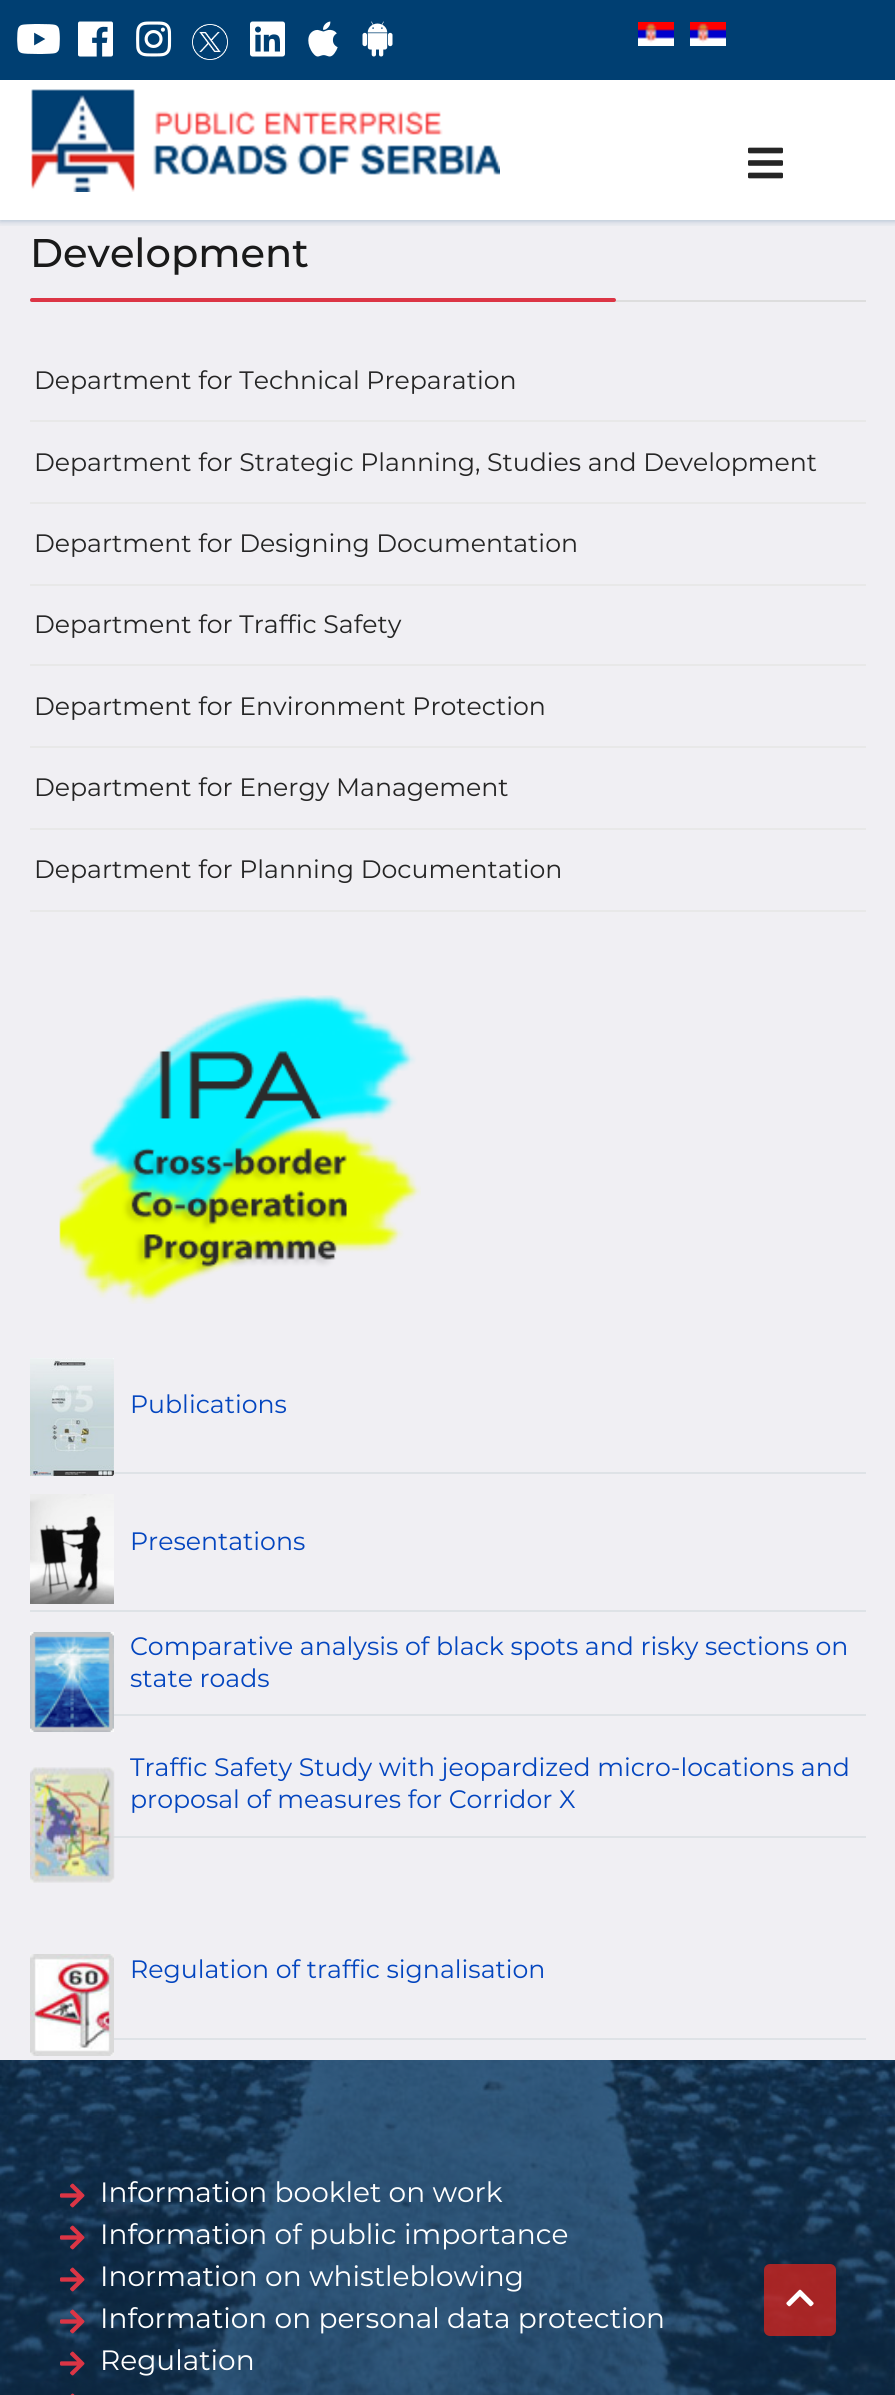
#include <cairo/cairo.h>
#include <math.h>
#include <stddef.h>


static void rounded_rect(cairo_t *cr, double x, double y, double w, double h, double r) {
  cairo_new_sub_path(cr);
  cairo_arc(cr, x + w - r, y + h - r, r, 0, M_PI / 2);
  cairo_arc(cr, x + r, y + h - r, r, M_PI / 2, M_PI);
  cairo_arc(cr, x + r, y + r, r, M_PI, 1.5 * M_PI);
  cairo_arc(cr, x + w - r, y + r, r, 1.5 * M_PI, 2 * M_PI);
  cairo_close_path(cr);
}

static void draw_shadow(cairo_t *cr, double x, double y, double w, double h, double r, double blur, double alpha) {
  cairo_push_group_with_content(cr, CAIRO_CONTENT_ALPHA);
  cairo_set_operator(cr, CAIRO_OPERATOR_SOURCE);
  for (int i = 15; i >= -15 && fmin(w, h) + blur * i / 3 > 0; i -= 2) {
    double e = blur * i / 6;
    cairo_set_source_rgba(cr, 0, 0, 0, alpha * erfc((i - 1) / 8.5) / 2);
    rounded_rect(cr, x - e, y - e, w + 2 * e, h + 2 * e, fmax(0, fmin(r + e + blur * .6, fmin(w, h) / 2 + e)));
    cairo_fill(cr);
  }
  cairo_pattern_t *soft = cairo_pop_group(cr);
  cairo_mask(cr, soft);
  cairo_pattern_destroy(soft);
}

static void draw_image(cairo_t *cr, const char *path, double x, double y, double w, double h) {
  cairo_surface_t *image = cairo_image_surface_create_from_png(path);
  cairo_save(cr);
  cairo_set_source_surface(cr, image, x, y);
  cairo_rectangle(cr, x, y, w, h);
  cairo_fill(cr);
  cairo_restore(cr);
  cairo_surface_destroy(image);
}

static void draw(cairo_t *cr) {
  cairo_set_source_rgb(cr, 1, 1, 1);
  cairo_paint(cr);
  cairo_set_source_rgb(cr, 240 / 255.0, 239 / 255.0, 243 / 255.0);
  cairo_rectangle(cr, 0, 80, 895, 1980);
  cairo_fill(cr);
  cairo_save(cr);
  cairo_rectangle(cr, 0, 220, 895, 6);
  cairo_clip(cr);
  cairo_set_source_rgb(cr, 0, 63 / 255.0, 114 / 255.0);
  draw_shadow(cr, 0, 80, 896, 140, 0, 4, 0.35);
  cairo_restore(cr);
  cairo_set_source_rgb(cr, 0, 63 / 255.0, 114 / 255.0);
  cairo_rectangle(cr, 0, 0, 895, 80);
  cairo_fill(cr);
  draw_image(cr, "images/1.png", 17, 24, 43, 30);
  draw_image(cr, "images/2.png", 78, 21, 35, 36);
  draw_image(cr, "images/3.png", 136, 21, 36, 36);
  draw_image(cr, "images/4.png", 192, 24, 36, 36);
  draw_image(cr, "images/5.png", 250, 21, 35, 36);
  draw_image(cr, "images/6.png", 308, 21, 30, 36);
  draw_image(cr, "images/7.png", 362, 21, 31, 36);
  draw_image(cr, "images/8.png", 638, 22, 36, 24);
  draw_image(cr, "images/8.png", 690, 22, 36, 24);
  cairo_set_source_rgba(cr, 1, 1, 1, 0.97);
  cairo_rectangle(cr, 0, 80, 895, 140);
  cairo_fill(cr);
  draw_image(cr, "images/9.png", 31, 89, 469, 103);
  draw_image(cr, "images/10.png", 748, 147, 35, 32);
  cairo_set_source_rgb(cr, 221 / 255.0, 221 / 255.0, 221 / 255.0);
  cairo_rectangle(cr, 30, 300, 836, 2);
  cairo_fill(cr);
  cairo_set_source_rgb(cr, 220 / 255.0, 53 / 255.0, 69 / 255.0);
  rounded_rect(cr, 30, 298, 586, 4, 2);
  cairo_fill(cr);
  cairo_set_source_rgb(cr, 232 / 255.0, 232 / 255.0, 232 / 255.0);
  cairo_rectangle(cr, 30, 420, 836, 2);
  cairo_fill(cr);
  cairo_rectangle(cr, 30, 502, 836, 2);
  cairo_fill(cr);
  cairo_rectangle(cr, 30, 584, 836, 2);
  cairo_fill(cr);
  cairo_rectangle(cr, 30, 664, 836, 2);
  cairo_fill(cr);
  cairo_rectangle(cr, 30, 746, 836, 2);
  cairo_fill(cr);
  cairo_rectangle(cr, 30, 828, 836, 2);
  cairo_fill(cr);
  cairo_rectangle(cr, 30, 910, 836, 2);
  cairo_fill(cr);
  draw_image(cr, "images/11.png", 59, 995, 362, 309);
  cairo_set_source_rgb(cr, 222 / 255.0, 226 / 255.0, 230 / 255.0);
  cairo_rectangle(cr, 114, 1472, 752, 2);
  cairo_fill(cr);
  draw_image(cr, "images/12.png", 30, 1358, 84, 118);
  cairo_rectangle(cr, 30, 1610, 836, 2);
  cairo_fill(cr);
  draw_image(cr, "images/13.png", 30, 1494, 84, 110);
  cairo_rectangle(cr, 114, 1714, 752, 2);
  cairo_fill(cr);
  draw_image(cr, "images/14.png", 30, 1632, 84, 100);
  cairo_rectangle(cr, 113, 1836, 753, 2);
  cairo_fill(cr);
  draw_image(cr, "images/15.png", 30, 1767, 85, 116);
  cairo_rectangle(cr, 114, 2038, 752, 2);
  cairo_fill(cr);
  draw_image(cr, "images/16.png", 30, 1954, 84, 102);
  draw_image(cr, "images/17.png", 0, 2060, 895, 335);
  cairo_set_source_rgba(cr, 8 / 255.0, 44 / 255.0, 78 / 255.0, 0.65);
  cairo_rectangle(cr, 0, 2060, 895, 335);
  cairo_fill(cr);
  draw_image(cr, "images/18.png", 60, 2183, 25, 25);
  draw_image(cr, "images/19.png", 60, 2225, 25, 25);
  draw_image(cr, "images/20.png", 60, 2267, 25, 25);
  draw_image(cr, "images/21.png", 60, 2309, 25, 25);
  draw_image(cr, "images/22.png", 60, 2351, 25, 25);
  draw_image(cr, "images/23.png", 70, 2393, 5, 2);
  cairo_set_source_rgba(cr, 218 / 255.0, 37 / 255.0, 28 / 255.0, 0.75);
  rounded_rect(cr, 764, 2264, 72, 72, 6);
  cairo_fill(cr);
  draw_image(cr, "images/24.png", 786, 2289, 28, 18);
  cairo_select_font_face(cr, "Montserrat Medium", CAIRO_FONT_SLANT_NORMAL, CAIRO_FONT_WEIGHT_NORMAL);
  cairo_set_font_size(cr, 40);
  cairo_set_source_rgb(cr, 26 / 255.0, 26 / 255.0, 26 / 255.0);
  cairo_move_to(cr, 30, 267);
  cairo_show_text(cr, "Development");
  cairo_select_font_face(cr, "Montserrat", CAIRO_FONT_SLANT_NORMAL, CAIRO_FONT_WEIGHT_NORMAL);
  cairo_set_font_size(cr, 25.2);
  cairo_set_source_rgb(cr, 37 / 255.0, 37 / 255.0, 37 / 255.0);
  cairo_move_to(cr, 34, 389);
  cairo_show_text(cr, "Department for Technical Preparation");
  cairo_move_to(cr, 34, 471);
  cairo_show_text(cr, "Department for Strategic Planning, Studies and Development");
  cairo_move_to(cr, 34, 552);
  cairo_show_text(cr, "Department for Designing Documentation");
  cairo_move_to(cr, 34, 633);
  cairo_show_text(cr, "Department for Traffic Safety");
  cairo_move_to(cr, 34, 715);
  cairo_show_text(cr, "Department for Environment Protection");
  cairo_move_to(cr, 34, 796);
  cairo_show_text(cr, "Department for Energy Management");
  cairo_move_to(cr, 34, 878);
  cairo_show_text(cr, "Department for Planning Documentation");
  cairo_set_source_rgb(cr, 3 / 255.0, 69 / 255.0, 191 / 255.0);
  cairo_move_to(cr, 130, 1413);
  cairo_show_text(cr, "Publications");
  cairo_move_to(cr, 130, 1550);
  cairo_show_text(cr, "Presentations");
  cairo_move_to(cr, 130, 1655);
  cairo_show_text(cr, "Comparative analysis of black spots and risky sections on");
  cairo_move_to(cr, 130, 1687);
  cairo_show_text(cr, "state roads");
  cairo_move_to(cr, 130, 1776);
  cairo_show_text(cr, "Traffic Safety Study with jeopardized micro-locations and");
  cairo_move_to(cr, 130, 1808);
  cairo_show_text(cr, "proposal of measures for Corridor X");
  cairo_move_to(cr, 130, 1978);
  cairo_show_text(cr, "Regulation of traffic signalisation");
  cairo_set_font_size(cr, 28);
  cairo_set_source_rgb(cr, 1, 1, 1);
  cairo_move_to(cr, 100, 2202);
  cairo_show_text(cr, "Information booklet on work");
  cairo_move_to(cr, 100, 2244);
  cairo_show_text(cr, "Information of public importance");
  cairo_move_to(cr, 100, 2286);
  cairo_show_text(cr, "Inormation on whistleblowing");
  cairo_move_to(cr, 100, 2328);
  cairo_show_text(cr, "Information on personal data protection");
  cairo_move_to(cr, 100, 2370);
  cairo_show_text(cr, "Regulation");
}

int main(void) {
  cairo_surface_t *surface = cairo_image_surface_create(CAIRO_FORMAT_RGB24, 895, 2395);
  cairo_t *cr = cairo_create(surface);
  cairo_font_options_t *options = cairo_font_options_create();
  cairo_font_options_set_hint_metrics(options, CAIRO_HINT_METRICS_OFF);
  cairo_font_options_set_hint_style(options, CAIRO_HINT_STYLE_NONE);
  cairo_set_font_options(cr, options);
  cairo_set_miter_limit(cr, 4);
  draw(cr);
  cairo_surface_write_to_png(surface, "out.png");
  cairo_font_options_destroy(options);
  cairo_destroy(cr);
  cairo_surface_destroy(surface);
  return 0;
}
